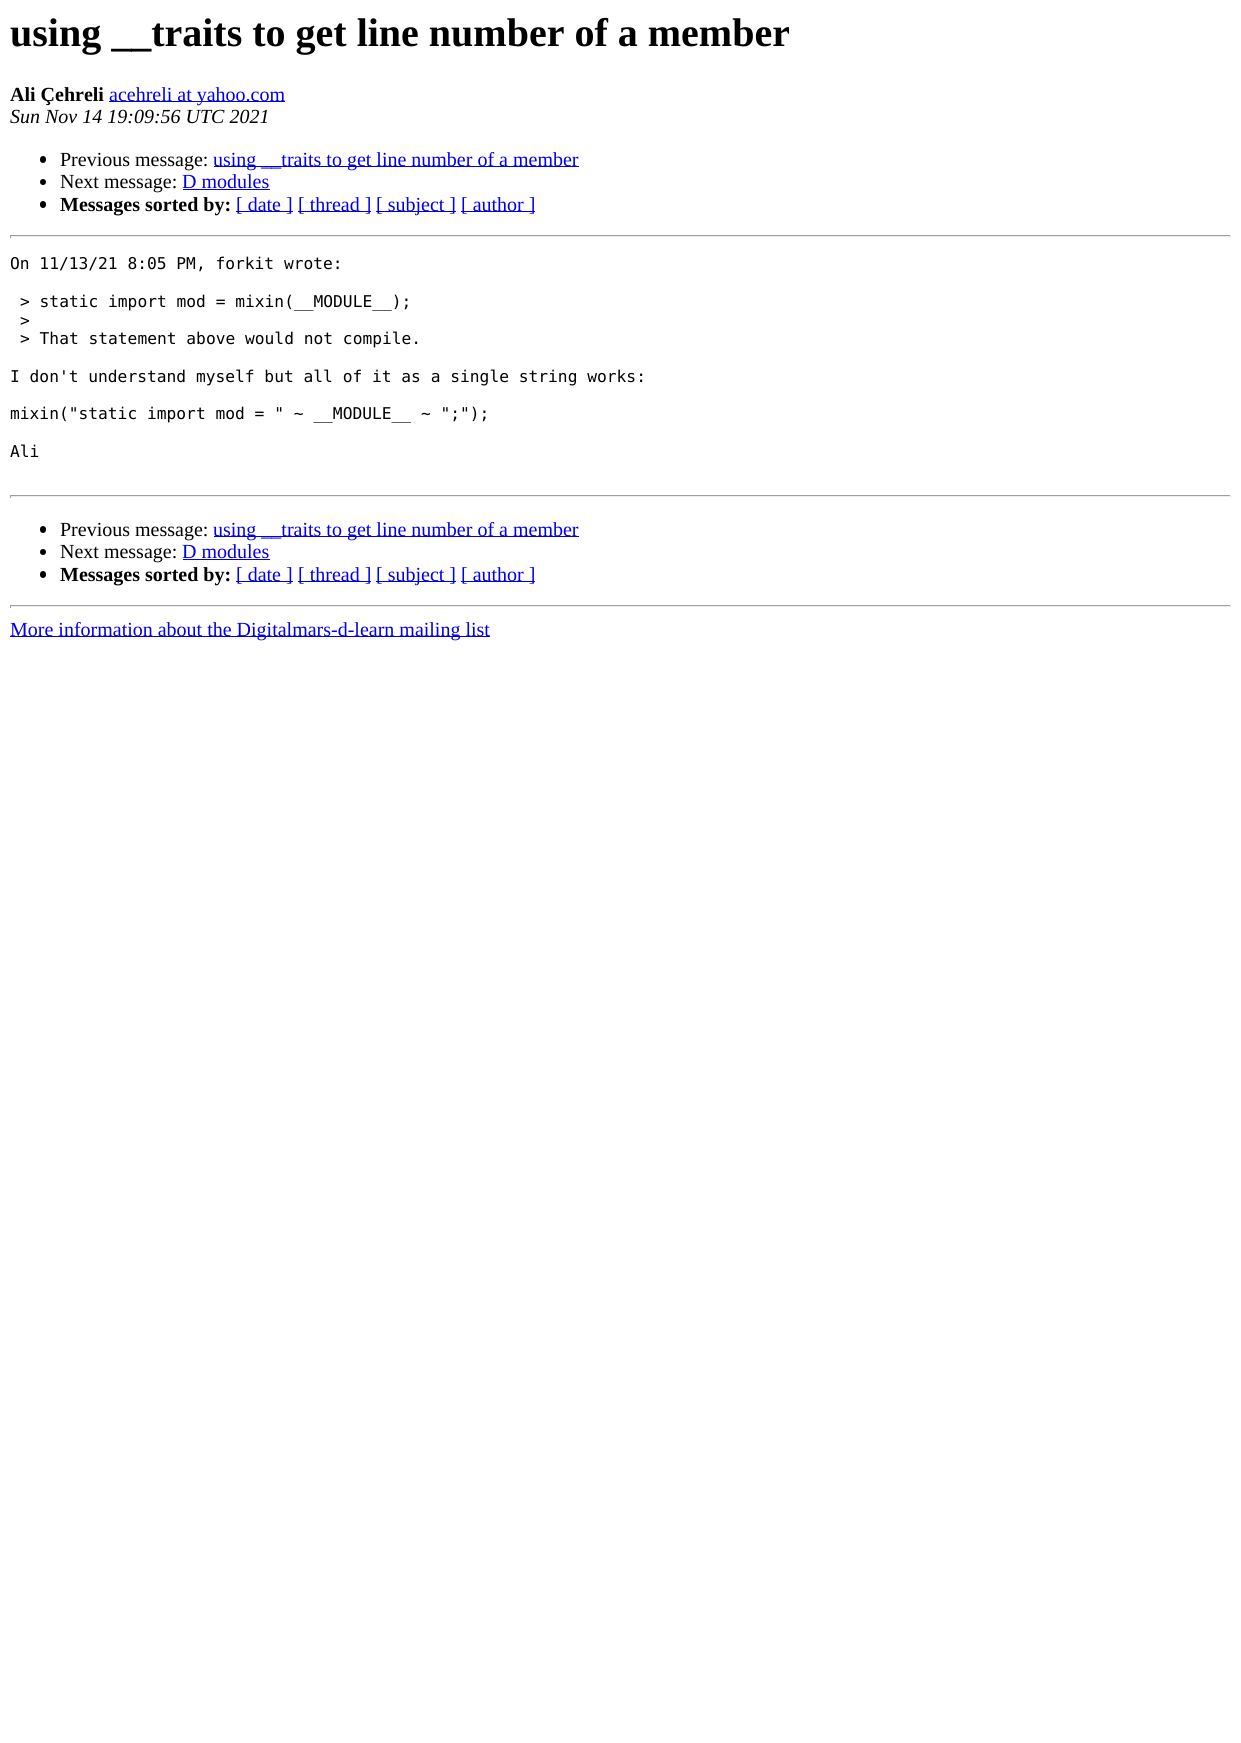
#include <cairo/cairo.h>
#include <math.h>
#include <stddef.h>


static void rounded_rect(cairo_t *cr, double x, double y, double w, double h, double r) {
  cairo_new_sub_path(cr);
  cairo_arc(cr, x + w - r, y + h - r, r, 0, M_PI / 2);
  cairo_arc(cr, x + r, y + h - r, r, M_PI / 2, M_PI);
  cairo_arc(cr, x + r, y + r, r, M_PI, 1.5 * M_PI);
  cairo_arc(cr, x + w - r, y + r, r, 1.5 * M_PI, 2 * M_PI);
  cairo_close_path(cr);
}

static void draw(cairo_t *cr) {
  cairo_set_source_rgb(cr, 1, 1, 1);
  cairo_paint(cr);
  cairo_set_source_rgb(cr, 0, 0, 238 / 255.0);
  cairo_rectangle(cr, 109, 101, 176, 1);
  cairo_fill(cr);
  cairo_set_source_rgb(cr, 0, 0, 0);
  rounded_rect(cr, 40, 156, 6, 7, 3);
  cairo_fill(cr);
  cairo_set_source_rgb(cr, 0, 0, 238 / 255.0);
  cairo_rectangle(cr, 214, 166, 365, 1);
  cairo_fill(cr);
  cairo_set_source_rgb(cr, 0, 0, 0);
  cairo_arc(cr, 43, 182, 3, 0, 2 * M_PI);
  cairo_fill(cr);
  cairo_set_source_rgb(cr, 0, 0, 238 / 255.0);
  cairo_rectangle(cr, 183, 189, 87, 1);
  cairo_fill(cr);
  cairo_set_source_rgb(cr, 0, 0, 0);
  rounded_rect(cr, 40, 201, 6, 7, 3);
  cairo_fill(cr);
  cairo_set_source_rgb(cr, 0, 0, 238 / 255.0);
  cairo_rectangle(cr, 236, 211, 57, 1);
  cairo_fill(cr);
  cairo_rectangle(cr, 298, 211, 73, 1);
  cairo_fill(cr);
  cairo_rectangle(cr, 376, 211, 80, 1);
  cairo_fill(cr);
  cairo_rectangle(cr, 461, 211, 74, 1);
  cairo_fill(cr);
  cairo_set_source_rgb(cr, 159 / 255.0, 159 / 255.0, 159 / 255.0);
  cairo_rectangle(cr, 10, 235, 1221, 1);
  cairo_fill(cr);
  cairo_set_source_rgb(cr, 238 / 255.0, 238 / 255.0, 238 / 255.0);
  cairo_rectangle(cr, 1230, 235, 1, 3);
  cairo_fill(cr);
  cairo_rectangle(cr, 10, 236, 1221, 1);
  cairo_fill(cr);
  cairo_set_source_rgb(cr, 159 / 255.0, 159 / 255.0, 159 / 255.0);
  cairo_rectangle(cr, 10, 235, 1, 3);
  cairo_fill(cr);
  cairo_rectangle(cr, 10, 495, 1221, 1);
  cairo_fill(cr);
  cairo_set_source_rgb(cr, 238 / 255.0, 238 / 255.0, 238 / 255.0);
  cairo_rectangle(cr, 1230, 495, 1, 3);
  cairo_fill(cr);
  cairo_rectangle(cr, 10, 496, 1221, 1);
  cairo_fill(cr);
  cairo_set_source_rgb(cr, 159 / 255.0, 159 / 255.0, 159 / 255.0);
  cairo_rectangle(cr, 10, 495, 1, 3);
  cairo_fill(cr);
  cairo_set_source_rgb(cr, 0, 0, 0);
  rounded_rect(cr, 40, 526, 6, 7, 3);
  cairo_fill(cr);
  cairo_set_source_rgb(cr, 0, 0, 238 / 255.0);
  cairo_rectangle(cr, 214, 536, 365, 1);
  cairo_fill(cr);
  cairo_set_source_rgb(cr, 0, 0, 0);
  cairo_arc(cr, 43, 552, 3, 0, 2 * M_PI);
  cairo_fill(cr);
  cairo_set_source_rgb(cr, 0, 0, 238 / 255.0);
  cairo_rectangle(cr, 183, 559, 87, 1);
  cairo_fill(cr);
  cairo_set_source_rgb(cr, 0, 0, 0);
  rounded_rect(cr, 40, 571, 6, 7, 3);
  cairo_fill(cr);
  cairo_set_source_rgb(cr, 0, 0, 238 / 255.0);
  cairo_rectangle(cr, 236, 581, 57, 1);
  cairo_fill(cr);
  cairo_rectangle(cr, 298, 581, 73, 1);
  cairo_fill(cr);
  cairo_rectangle(cr, 376, 581, 80, 1);
  cairo_fill(cr);
  cairo_rectangle(cr, 461, 581, 74, 1);
  cairo_fill(cr);
  cairo_set_source_rgb(cr, 159 / 255.0, 159 / 255.0, 159 / 255.0);
  cairo_rectangle(cr, 10, 605, 1221, 1);
  cairo_fill(cr);
  cairo_set_source_rgb(cr, 238 / 255.0, 238 / 255.0, 238 / 255.0);
  cairo_rectangle(cr, 1230, 605, 1, 3);
  cairo_fill(cr);
  cairo_rectangle(cr, 10, 606, 1221, 1);
  cairo_fill(cr);
  cairo_set_source_rgb(cr, 159 / 255.0, 159 / 255.0, 159 / 255.0);
  cairo_rectangle(cr, 10, 605, 1, 3);
  cairo_fill(cr);
  cairo_set_source_rgb(cr, 0, 0, 238 / 255.0);
  cairo_rectangle(cr, 10, 636, 480, 1);
  cairo_fill(cr);
  cairo_select_font_face(cr, "Liberation Serif", CAIRO_FONT_SLANT_NORMAL, CAIRO_FONT_WEIGHT_BOLD);
  cairo_set_font_size(cr, 40);
  cairo_set_source_rgb(cr, 0, 0, 0);
  cairo_move_to(cr, 10, 46);
  cairo_show_text(cr, "using __traits to get line number of a member");
  cairo_set_font_size(cr, 20);
  cairo_move_to(cr, 10, 101);
  cairo_show_text(cr, "Ali Çehreli");
  cairo_select_font_face(cr, "Liberation Serif", CAIRO_FONT_SLANT_NORMAL, CAIRO_FONT_WEIGHT_NORMAL);
  cairo_set_source_rgb(cr, 0, 0, 238 / 255.0);
  cairo_move_to(cr, 109, 101);
  cairo_show_text(cr, "acehreli at yahoo.com");
  cairo_select_font_face(cr, "Liberation Serif", CAIRO_FONT_SLANT_ITALIC, CAIRO_FONT_WEIGHT_NORMAL);
  cairo_set_source_rgb(cr, 0, 0, 0);
  cairo_move_to(cr, 10, 123);
  cairo_show_text(cr, "Sun Nov 14 19:09:56 UTC 2021");
  cairo_select_font_face(cr, "Liberation Serif", CAIRO_FONT_SLANT_NORMAL, CAIRO_FONT_WEIGHT_NORMAL);
  cairo_move_to(cr, 60, 166);
  cairo_show_text(cr, "Previous message:");
  cairo_set_source_rgb(cr, 0, 0, 238 / 255.0);
  cairo_move_to(cr, 213, 166);
  cairo_show_text(cr, "using __traits to get line number of a member");
  cairo_set_source_rgb(cr, 0, 0, 0);
  cairo_move_to(cr, 60, 188);
  cairo_show_text(cr, "Next message:");
  cairo_set_source_rgb(cr, 0, 0, 238 / 255.0);
  cairo_move_to(cr, 182, 188);
  cairo_show_text(cr, "D modules");
  cairo_select_font_face(cr, "Liberation Serif", CAIRO_FONT_SLANT_NORMAL, CAIRO_FONT_WEIGHT_BOLD);
  cairo_set_source_rgb(cr, 0, 0, 0);
  cairo_move_to(cr, 60, 211);
  cairo_show_text(cr, "Messages sorted by:");
  cairo_select_font_face(cr, "Liberation Serif", CAIRO_FONT_SLANT_NORMAL, CAIRO_FONT_WEIGHT_NORMAL);
  cairo_set_source_rgb(cr, 0, 0, 238 / 255.0);
  cairo_move_to(cr, 236, 211);
  cairo_show_text(cr, "[ date ]");
  cairo_move_to(cr, 298, 211);
  cairo_show_text(cr, "[ thread ]");
  cairo_move_to(cr, 376, 211);
  cairo_show_text(cr, "[ subject ]");
  cairo_move_to(cr, 461, 211);
  cairo_show_text(cr, "[ author ]");
  cairo_select_font_face(cr, "DejaVu Sans Mono", CAIRO_FONT_SLANT_NORMAL, CAIRO_FONT_WEIGHT_NORMAL);
  cairo_set_font_size(cr, 16.25);
  cairo_set_source_rgb(cr, 0, 0, 0);
  cairo_move_to(cr, 10, 269);
  cairo_show_text(cr, "On 11/13/21 8:05 PM, forkit wrote:");
  cairo_move_to(cr, 20, 307);
  cairo_show_text(cr, "> static import mod = mixin(__MODULE__);");
  cairo_move_to(cr, 20, 326);
  cairo_show_text(cr, ">");
  cairo_move_to(cr, 20, 344);
  cairo_show_text(cr, "> That statement above would not compile.");
  cairo_move_to(cr, 10, 382);
  cairo_show_text(cr, "I don't understand myself but all of it as a single string works:");
  cairo_move_to(cr, 10, 419);
  cairo_show_text(cr, "mixin(\"static import mod = \" ~ __MODULE__ ~ \";\");");
  cairo_move_to(cr, 10, 457);
  cairo_show_text(cr, "Ali");
  cairo_select_font_face(cr, "Liberation Serif", CAIRO_FONT_SLANT_NORMAL, CAIRO_FONT_WEIGHT_NORMAL);
  cairo_set_font_size(cr, 20);
  cairo_move_to(cr, 60, 536);
  cairo_show_text(cr, "Previous message:");
  cairo_set_source_rgb(cr, 0, 0, 238 / 255.0);
  cairo_move_to(cr, 213, 536);
  cairo_show_text(cr, "using __traits to get line number of a member");
  cairo_set_source_rgb(cr, 0, 0, 0);
  cairo_move_to(cr, 60, 558);
  cairo_show_text(cr, "Next message:");
  cairo_set_source_rgb(cr, 0, 0, 238 / 255.0);
  cairo_move_to(cr, 182, 558);
  cairo_show_text(cr, "D modules");
  cairo_select_font_face(cr, "Liberation Serif", CAIRO_FONT_SLANT_NORMAL, CAIRO_FONT_WEIGHT_BOLD);
  cairo_set_source_rgb(cr, 0, 0, 0);
  cairo_move_to(cr, 60, 581);
  cairo_show_text(cr, "Messages sorted by:");
  cairo_select_font_face(cr, "Liberation Serif", CAIRO_FONT_SLANT_NORMAL, CAIRO_FONT_WEIGHT_NORMAL);
  cairo_set_source_rgb(cr, 0, 0, 238 / 255.0);
  cairo_move_to(cr, 236, 581);
  cairo_show_text(cr, "[ date ]");
  cairo_move_to(cr, 298, 581);
  cairo_show_text(cr, "[ thread ]");
  cairo_move_to(cr, 376, 581);
  cairo_show_text(cr, "[ subject ]");
  cairo_move_to(cr, 461, 581);
  cairo_show_text(cr, "[ author ]");
  cairo_move_to(cr, 10, 636);
  cairo_show_text(cr, "More information about the Digitalmars-d-learn mailing list");
}

int main(void) {
  cairo_surface_t *surface = cairo_image_surface_create(CAIRO_FORMAT_RGB24, 1241, 1743);
  cairo_t *cr = cairo_create(surface);
  cairo_font_options_t *options = cairo_font_options_create();
  cairo_font_options_set_hint_metrics(options, CAIRO_HINT_METRICS_OFF);
  cairo_font_options_set_hint_style(options, CAIRO_HINT_STYLE_NONE);
  cairo_set_font_options(cr, options);
  cairo_set_miter_limit(cr, 4);
  draw(cr);
  cairo_surface_write_to_png(surface, "out.png");
  cairo_font_options_destroy(options);
  cairo_destroy(cr);
  cairo_surface_destroy(surface);
  return 0;
}
